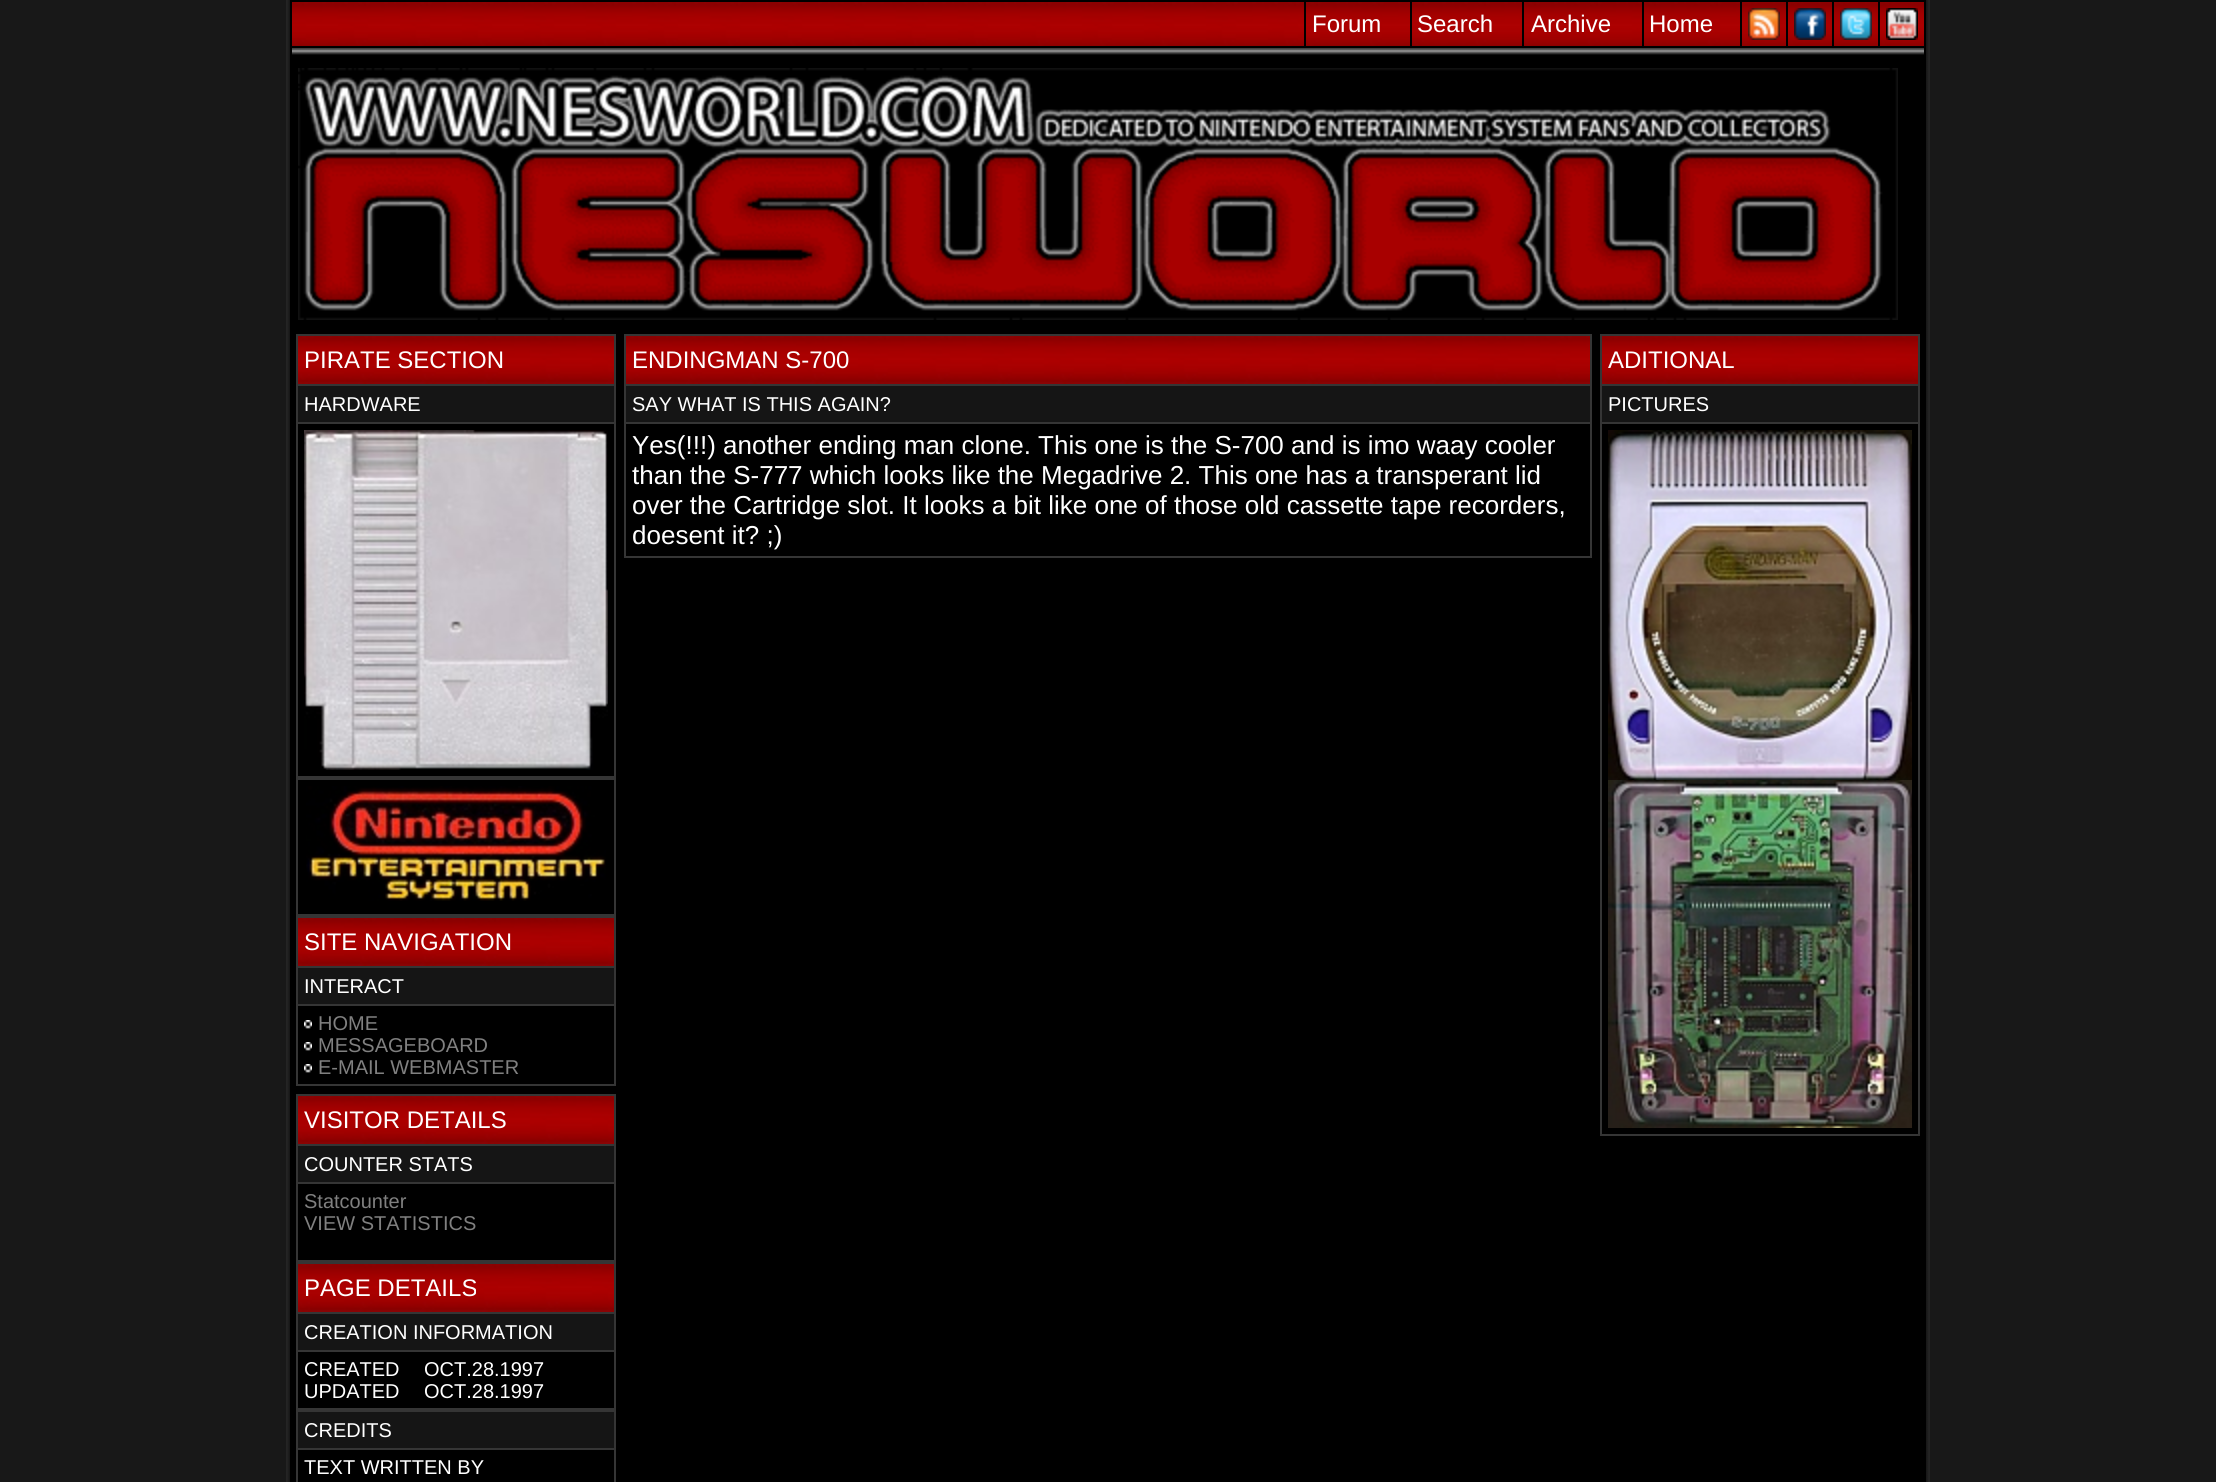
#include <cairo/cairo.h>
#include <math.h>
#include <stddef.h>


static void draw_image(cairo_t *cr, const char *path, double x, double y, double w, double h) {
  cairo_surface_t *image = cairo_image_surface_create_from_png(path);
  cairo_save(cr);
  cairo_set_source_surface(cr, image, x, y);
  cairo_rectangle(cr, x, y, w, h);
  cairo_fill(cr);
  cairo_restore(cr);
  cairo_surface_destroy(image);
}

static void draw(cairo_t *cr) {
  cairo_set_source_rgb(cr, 24 / 255.0, 24 / 255.0, 24 / 255.0);
  cairo_paint(cr);
  draw_image(cr, "images/1.png", 286, 0, 1644, 1482);
  cairo_set_source_rgb(cr, 0, 0, 0);
  cairo_rectangle(cr, 290, 0, 1636, 1482);
  cairo_fill(cr);
  draw_image(cr, "images/2.png", 292, 2, 1012, 44);
  draw_image(cr, "images/3.png", 1306, 2, 104, 44);
  draw_image(cr, "images/4.png", 1412, 2, 110, 44);
  draw_image(cr, "images/5.png", 1524, 2, 118, 44);
  draw_image(cr, "images/6.png", 1644, 2, 96, 44);
  draw_image(cr, "images/7.png", 1742, 2, 44, 44);
  draw_image(cr, "images/8.png", 1748, 8, 32, 32);
  draw_image(cr, "images/7.png", 1788, 2, 44, 44);
  draw_image(cr, "images/9.png", 1794, 8, 32, 32);
  draw_image(cr, "images/7.png", 1834, 2, 44, 44);
  draw_image(cr, "images/10.png", 1840, 8, 32, 32);
  draw_image(cr, "images/7.png", 1880, 2, 44, 44);
  draw_image(cr, "images/11.png", 1886, 8, 32, 32);
  draw_image(cr, "images/12.png", 292, 48, 1632, 7);
  draw_image(cr, "images/13.png", 298, 68, 1600, 252);
  cairo_set_source_rgb(cr, 53 / 255.0, 53 / 255.0, 53 / 255.0);
  cairo_rectangle(cr, 296, 334, 320, 752);
  cairo_fill(cr);
  draw_image(cr, "images/14.png", 298, 336, 316, 48);
  cairo_set_source_rgb(cr, 21 / 255.0, 21 / 255.0, 21 / 255.0);
  cairo_rectangle(cr, 298, 386, 316, 36);
  cairo_fill(cr);
  cairo_set_source_rgb(cr, 0, 0, 0);
  cairo_rectangle(cr, 298, 424, 316, 352);
  cairo_fill(cr);
  draw_image(cr, "images/15.png", 304, 430, 304, 340);
  cairo_rectangle(cr, 298, 780, 316, 134);
  cairo_fill(cr);
  draw_image(cr, "images/16.png", 306, 786, 300, 115);
  draw_image(cr, "images/14.png", 298, 918, 316, 48);
  cairo_set_source_rgb(cr, 21 / 255.0, 21 / 255.0, 21 / 255.0);
  cairo_rectangle(cr, 298, 968, 316, 36);
  cairo_fill(cr);
  cairo_set_source_rgb(cr, 0, 0, 0);
  cairo_rectangle(cr, 298, 1006, 316, 78);
  cairo_fill(cr);
  draw_image(cr, "images/17.png", 304, 1020, 8, 9);
  draw_image(cr, "images/17.png", 304, 1042, 8, 9);
  draw_image(cr, "images/17.png", 304, 1064, 8, 9);
  cairo_set_source_rgb(cr, 53 / 255.0, 53 / 255.0, 53 / 255.0);
  cairo_rectangle(cr, 296, 1094, 320, 388);
  cairo_fill(cr);
  draw_image(cr, "images/14.png", 298, 1096, 316, 48);
  cairo_set_source_rgb(cr, 21 / 255.0, 21 / 255.0, 21 / 255.0);
  cairo_rectangle(cr, 298, 1146, 316, 36);
  cairo_fill(cr);
  cairo_set_source_rgb(cr, 0, 0, 0);
  cairo_rectangle(cr, 298, 1184, 316, 76);
  cairo_fill(cr);
  draw_image(cr, "images/14.png", 298, 1264, 316, 48);
  cairo_set_source_rgb(cr, 21 / 255.0, 21 / 255.0, 21 / 255.0);
  cairo_rectangle(cr, 298, 1314, 316, 36);
  cairo_fill(cr);
  cairo_set_source_rgb(cr, 0, 0, 0);
  cairo_rectangle(cr, 298, 1352, 316, 56);
  cairo_fill(cr);
  cairo_set_source_rgb(cr, 21 / 255.0, 21 / 255.0, 21 / 255.0);
  cairo_rectangle(cr, 298, 1412, 316, 36);
  cairo_fill(cr);
  cairo_set_source_rgb(cr, 0, 0, 0);
  cairo_rectangle(cr, 298, 1450, 316, 32);
  cairo_fill(cr);
  cairo_set_source_rgb(cr, 53 / 255.0, 53 / 255.0, 53 / 255.0);
  cairo_rectangle(cr, 624, 334, 968, 224);
  cairo_fill(cr);
  draw_image(cr, "images/18.png", 626, 336, 964, 48);
  cairo_set_source_rgb(cr, 21 / 255.0, 21 / 255.0, 21 / 255.0);
  cairo_rectangle(cr, 626, 386, 964, 36);
  cairo_fill(cr);
  cairo_set_source_rgb(cr, 0, 0, 0);
  cairo_rectangle(cr, 626, 424, 964, 132);
  cairo_fill(cr);
  cairo_set_source_rgb(cr, 53 / 255.0, 53 / 255.0, 53 / 255.0);
  cairo_rectangle(cr, 1600, 334, 320, 802);
  cairo_fill(cr);
  draw_image(cr, "images/14.png", 1602, 336, 316, 48);
  cairo_set_source_rgb(cr, 21 / 255.0, 21 / 255.0, 21 / 255.0);
  cairo_rectangle(cr, 1602, 386, 316, 36);
  cairo_fill(cr);
  cairo_set_source_rgb(cr, 0, 0, 0);
  cairo_rectangle(cr, 1602, 424, 316, 710);
  cairo_fill(cr);
  draw_image(cr, "images/19.png", 1608, 430, 304, 350);
  draw_image(cr, "images/20.png", 1608, 780, 304, 348);
  cairo_select_font_face(cr, "Liberation Sans", CAIRO_FONT_SLANT_NORMAL, CAIRO_FONT_WEIGHT_NORMAL);
  cairo_set_font_size(cr, 24);
  cairo_set_source_rgb(cr, 1, 1, 1);
  cairo_move_to(cr, 1312, 32);
  cairo_show_text(cr, "Forum");
  cairo_move_to(cr, 1417, 32);
  cairo_show_text(cr, "Search");
  cairo_move_to(cr, 1531, 32);
  cairo_show_text(cr, "Archive");
  cairo_move_to(cr, 1649, 32);
  cairo_show_text(cr, "Home");
  cairo_move_to(cr, 304, 368);
  cairo_show_text(cr, "PIRATE SECTION");
  cairo_set_font_size(cr, 20);
  cairo_move_to(cr, 304, 411);
  cairo_show_text(cr, "HARDWARE");
  cairo_set_font_size(cr, 24);
  cairo_move_to(cr, 304, 950);
  cairo_show_text(cr, "SITE NAVIGATION");
  cairo_set_font_size(cr, 20);
  cairo_move_to(cr, 304, 993);
  cairo_show_text(cr, "INTERACT");
  cairo_set_source_rgb(cr, 128 / 255.0, 128 / 255.0, 128 / 255.0);
  cairo_move_to(cr, 318, 1030);
  cairo_show_text(cr, "HOME");
  cairo_move_to(cr, 318, 1052);
  cairo_show_text(cr, "MESSAGEBOARD");
  cairo_move_to(cr, 318, 1074);
  cairo_show_text(cr, "E-MAIL WEBMASTER");
  cairo_set_font_size(cr, 24);
  cairo_set_source_rgb(cr, 1, 1, 1);
  cairo_move_to(cr, 304, 1128);
  cairo_show_text(cr, "VISITOR DETAILS");
  cairo_set_font_size(cr, 20);
  cairo_move_to(cr, 304, 1171);
  cairo_show_text(cr, "COUNTER STATS");
  cairo_set_source_rgb(cr, 128 / 255.0, 128 / 255.0, 128 / 255.0);
  cairo_move_to(cr, 304, 1208);
  cairo_show_text(cr, "Statcounter");
  cairo_move_to(cr, 304, 1230);
  cairo_show_text(cr, "VIEW STATISTICS");
  cairo_set_font_size(cr, 24);
  cairo_set_source_rgb(cr, 1, 1, 1);
  cairo_move_to(cr, 304, 1296);
  cairo_show_text(cr, "PAGE DETAILS");
  cairo_set_font_size(cr, 20);
  cairo_move_to(cr, 304, 1339);
  cairo_show_text(cr, "CREATION INFORMATION");
  cairo_move_to(cr, 304, 1376);
  cairo_show_text(cr, "CREATED");
  cairo_move_to(cr, 424, 1376);
  cairo_show_text(cr, "OCT.28.1997");
  cairo_move_to(cr, 304, 1398);
  cairo_show_text(cr, "UPDATED");
  cairo_move_to(cr, 424, 1398);
  cairo_show_text(cr, "OCT.28.1997");
  cairo_move_to(cr, 304, 1437);
  cairo_show_text(cr, "CREDITS");
  cairo_move_to(cr, 304, 1474);
  cairo_show_text(cr, "TEXT WRITTEN BY");
  cairo_set_font_size(cr, 24);
  cairo_move_to(cr, 632, 368);
  cairo_show_text(cr, "ENDINGMAN S-700");
  cairo_set_font_size(cr, 20);
  cairo_move_to(cr, 632, 411);
  cairo_show_text(cr, "SAY WHAT IS THIS AGAIN?");
  cairo_set_font_size(cr, 26);
  cairo_move_to(cr, 632, 454);
  cairo_show_text(cr, "Yes(!!!) another ending man clone. This one is the S-700 and is imo waay cooler");
  cairo_move_to(cr, 632, 484);
  cairo_show_text(cr, "than the S-777 which looks like the Megadrive 2. This one has a transperant lid");
  cairo_move_to(cr, 632, 514);
  cairo_show_text(cr, "over the Cartridge slot. It looks a bit like one of those old cassette tape recorders,");
  cairo_move_to(cr, 632, 544);
  cairo_show_text(cr, "doesent it? ;)");
  cairo_set_font_size(cr, 24);
  cairo_move_to(cr, 1608, 368);
  cairo_show_text(cr, "ADITIONAL");
  cairo_set_font_size(cr, 20);
  cairo_move_to(cr, 1608, 411);
  cairo_show_text(cr, "PICTURES");
}

int main(void) {
  cairo_surface_t *surface = cairo_image_surface_create(CAIRO_FORMAT_RGB24, 2216, 1482);
  cairo_t *cr = cairo_create(surface);
  cairo_font_options_t *options = cairo_font_options_create();
  cairo_font_options_set_hint_metrics(options, CAIRO_HINT_METRICS_OFF);
  cairo_font_options_set_hint_style(options, CAIRO_HINT_STYLE_NONE);
  cairo_set_font_options(cr, options);
  cairo_set_miter_limit(cr, 4);
  draw(cr);
  cairo_surface_write_to_png(surface, "out.png");
  cairo_font_options_destroy(options);
  cairo_destroy(cr);
  cairo_surface_destroy(surface);
  return 0;
}
